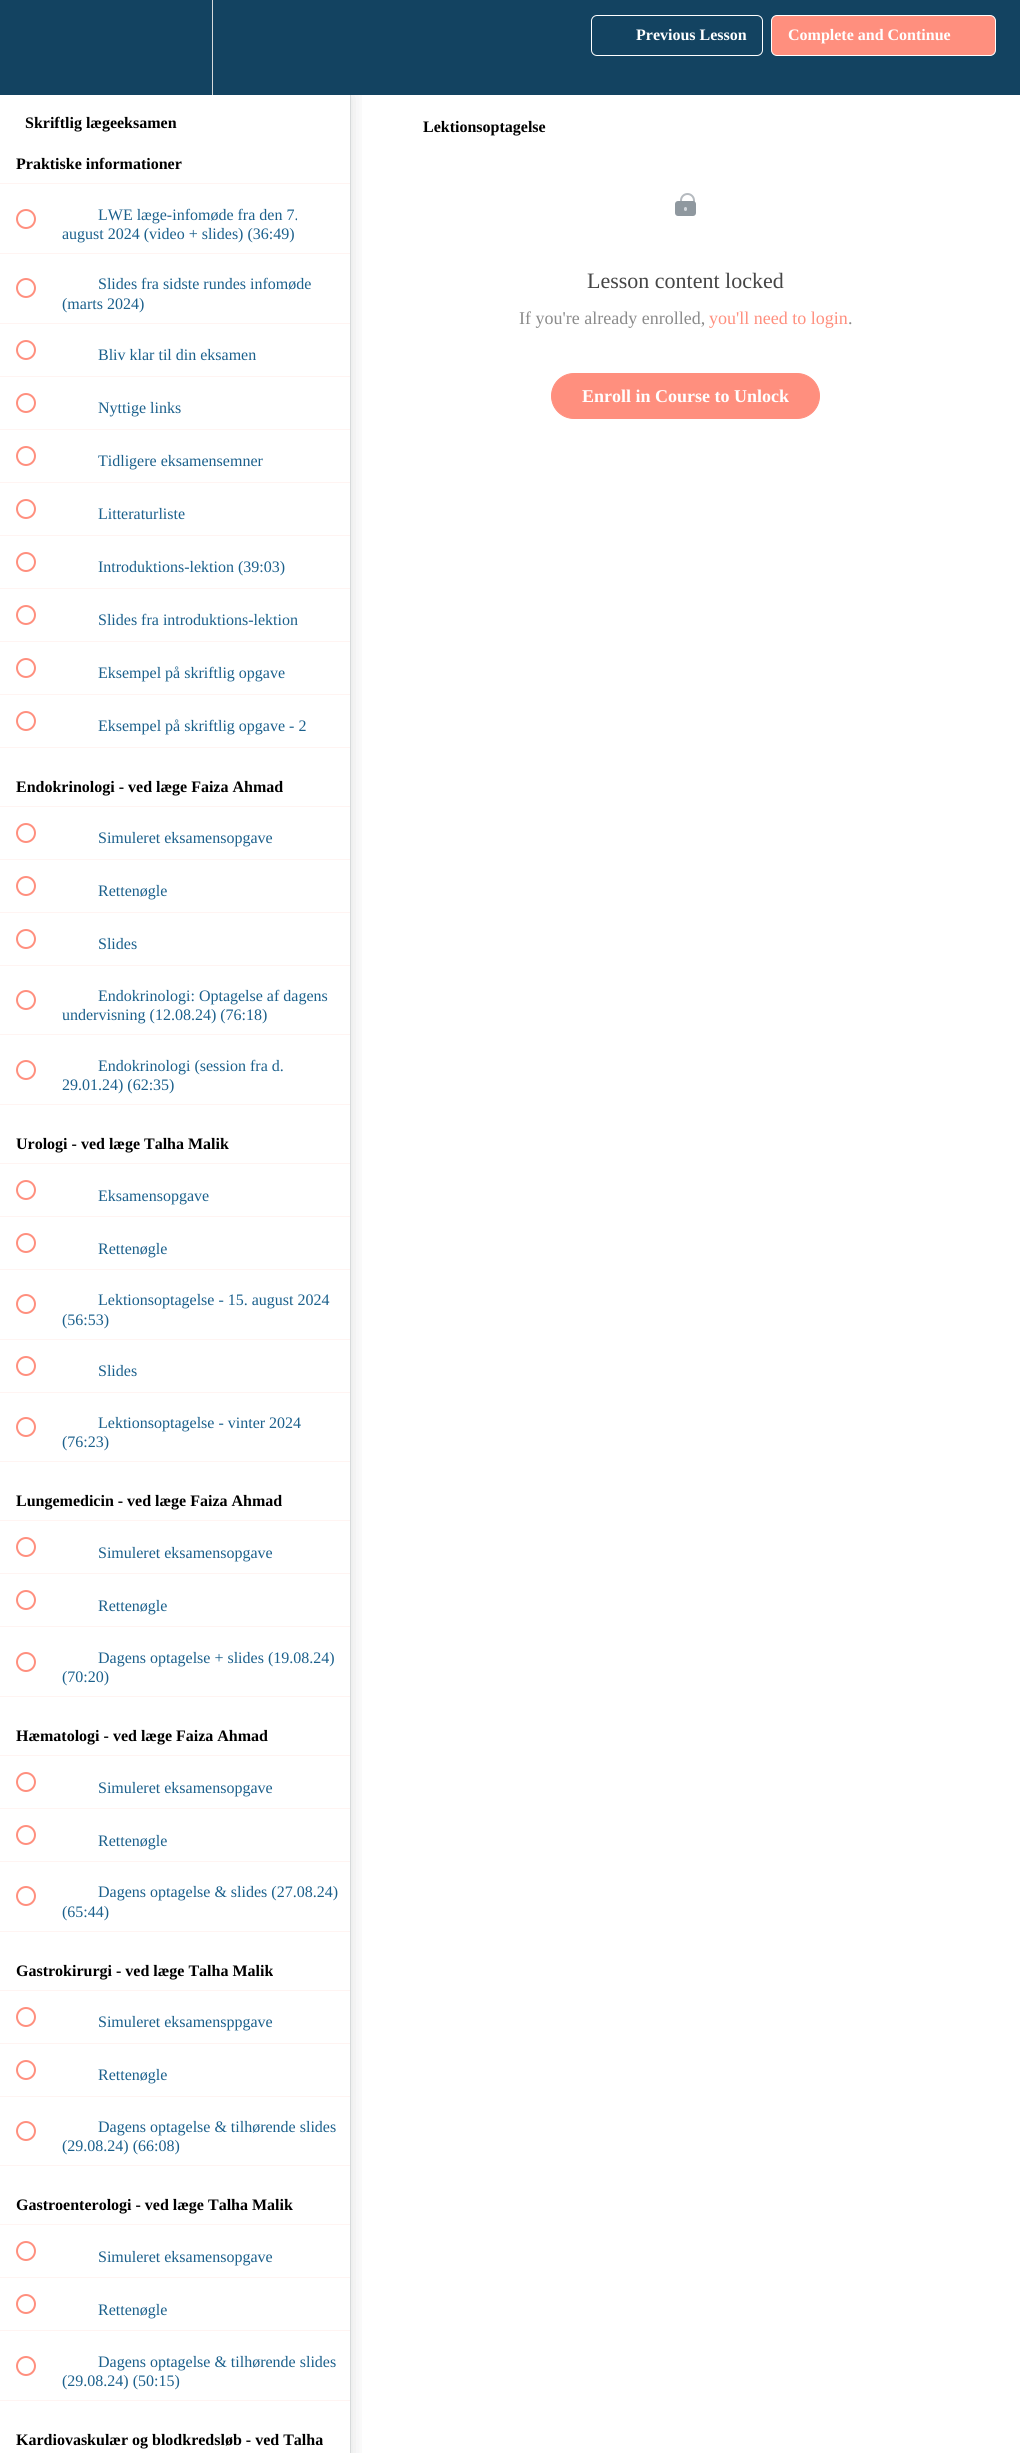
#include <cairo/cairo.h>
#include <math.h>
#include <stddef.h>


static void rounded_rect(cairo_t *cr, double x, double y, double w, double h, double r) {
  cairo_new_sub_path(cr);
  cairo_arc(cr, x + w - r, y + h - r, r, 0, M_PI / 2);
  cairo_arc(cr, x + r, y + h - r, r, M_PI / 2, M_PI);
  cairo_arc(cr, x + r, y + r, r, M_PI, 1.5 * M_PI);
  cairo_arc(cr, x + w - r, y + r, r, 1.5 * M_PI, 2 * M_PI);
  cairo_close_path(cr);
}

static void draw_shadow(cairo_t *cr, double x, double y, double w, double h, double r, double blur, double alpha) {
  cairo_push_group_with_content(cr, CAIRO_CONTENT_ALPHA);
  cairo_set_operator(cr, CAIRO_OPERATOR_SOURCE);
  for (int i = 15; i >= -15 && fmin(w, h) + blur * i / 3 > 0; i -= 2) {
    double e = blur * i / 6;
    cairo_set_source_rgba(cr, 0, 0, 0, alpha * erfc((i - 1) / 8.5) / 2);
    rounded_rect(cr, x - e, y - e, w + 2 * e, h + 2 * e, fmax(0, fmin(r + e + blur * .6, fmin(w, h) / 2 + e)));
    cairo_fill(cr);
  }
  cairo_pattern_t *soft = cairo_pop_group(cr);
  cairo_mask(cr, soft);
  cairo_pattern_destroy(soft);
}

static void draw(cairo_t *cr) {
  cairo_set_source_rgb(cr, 1, 1, 1);
  cairo_paint(cr);
  cairo_save(cr);
  cairo_rectangle(cr, 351, 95, 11, 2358);
  cairo_clip(cr);
  cairo_set_source_rgb(cr, 32 / 255.0, 39 / 255.0, 45 / 255.0);
  draw_shadow(cr, 0, 95, 351, 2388, 0, 10, 0.15);
  cairo_restore(cr);
  cairo_set_source_rgb(cr, 215 / 255.0, 218 / 255.0, 219 / 255.0);
  cairo_rectangle(cr, 350, 89, 1, 2364);
  cairo_fill(cr);
  cairo_set_source_rgb(cr, 19 / 255.0, 67 / 255.0, 97 / 255.0);
  cairo_rectangle(cr, 0, 0, 1020, 95);
  cairo_fill(cr);
  cairo_set_source_rgb(cr, 215 / 255.0, 218 / 255.0, 219 / 255.0);
  cairo_rectangle(cr, 212, 0, 1, 95);
  cairo_fill(cr);
  rounded_rect(cr, 591.5, 15.5, 171, 40, 5.5);
  cairo_set_source_rgb(cr, 1, 1, 1);
  cairo_set_line_width(cr, 1);
  cairo_stroke(cr);
  cairo_set_source_rgb(cr, 1, 143 / 255.0, 126 / 255.0);
  rounded_rect(cr, 771.5, 15.5, 224, 40, 5.5);
  cairo_fill_preserve(cr);
  cairo_set_source_rgb(cr, 1, 1, 1);
  cairo_stroke(cr);
  cairo_set_source_rgb(cr, 1, 244 / 255.0, 242 / 255.0);
  cairo_rectangle(cr, 0, 183, 350, 1);
  cairo_fill(cr);
  cairo_rectangle(cr, 0, 253, 350, 1);
  cairo_fill(cr);
  cairo_arc(cr, 26, 219, 9, 0, 2 * M_PI);
  cairo_set_source_rgb(cr, 1, 143 / 255.0, 126 / 255.0);
  cairo_set_line_width(cr, 2);
  cairo_stroke(cr);
  cairo_set_source_rgb(cr, 1, 244 / 255.0, 242 / 255.0);
  cairo_rectangle(cr, 0, 323, 350, 1);
  cairo_fill(cr);
  cairo_arc(cr, 26, 288, 9, 0, 2 * M_PI);
  cairo_set_source_rgb(cr, 1, 143 / 255.0, 126 / 255.0);
  cairo_stroke(cr);
  cairo_set_source_rgb(cr, 1, 244 / 255.0, 242 / 255.0);
  cairo_rectangle(cr, 0, 376, 350, 1);
  cairo_fill(cr);
  cairo_arc(cr, 26, 350, 9, 0, 2 * M_PI);
  cairo_set_source_rgb(cr, 1, 143 / 255.0, 126 / 255.0);
  cairo_stroke(cr);
  cairo_set_source_rgb(cr, 1, 244 / 255.0, 242 / 255.0);
  cairo_rectangle(cr, 0, 429, 350, 1);
  cairo_fill(cr);
  cairo_arc(cr, 26, 403, 9, 0, 2 * M_PI);
  cairo_set_source_rgb(cr, 1, 143 / 255.0, 126 / 255.0);
  cairo_stroke(cr);
  cairo_set_source_rgb(cr, 1, 244 / 255.0, 242 / 255.0);
  cairo_rectangle(cr, 0, 482, 350, 1);
  cairo_fill(cr);
  cairo_arc(cr, 26, 456, 9, 0, 2 * M_PI);
  cairo_set_source_rgb(cr, 1, 143 / 255.0, 126 / 255.0);
  cairo_stroke(cr);
  cairo_set_source_rgb(cr, 1, 244 / 255.0, 242 / 255.0);
  cairo_rectangle(cr, 0, 535, 350, 1);
  cairo_fill(cr);
  cairo_arc(cr, 26, 509, 9, 0, 2 * M_PI);
  cairo_set_source_rgb(cr, 1, 143 / 255.0, 126 / 255.0);
  cairo_stroke(cr);
  cairo_set_source_rgb(cr, 1, 244 / 255.0, 242 / 255.0);
  cairo_rectangle(cr, 0, 588, 350, 1);
  cairo_fill(cr);
  cairo_arc(cr, 26, 562, 9, 0, 2 * M_PI);
  cairo_set_source_rgb(cr, 1, 143 / 255.0, 126 / 255.0);
  cairo_stroke(cr);
  cairo_set_source_rgb(cr, 1, 244 / 255.0, 242 / 255.0);
  cairo_rectangle(cr, 0, 641, 350, 1);
  cairo_fill(cr);
  cairo_arc(cr, 26, 615, 9, 0, 2 * M_PI);
  cairo_set_source_rgb(cr, 1, 143 / 255.0, 126 / 255.0);
  cairo_stroke(cr);
  cairo_set_source_rgb(cr, 1, 244 / 255.0, 242 / 255.0);
  cairo_rectangle(cr, 0, 694, 350, 1);
  cairo_fill(cr);
  cairo_arc(cr, 26, 668, 9, 0, 2 * M_PI);
  cairo_set_source_rgb(cr, 1, 143 / 255.0, 126 / 255.0);
  cairo_stroke(cr);
  cairo_set_source_rgb(cr, 1, 244 / 255.0, 242 / 255.0);
  cairo_rectangle(cr, 0, 747, 350, 1);
  cairo_fill(cr);
  cairo_arc(cr, 26, 721, 9, 0, 2 * M_PI);
  cairo_set_source_rgb(cr, 1, 143 / 255.0, 126 / 255.0);
  cairo_stroke(cr);
  cairo_set_source_rgb(cr, 1, 244 / 255.0, 242 / 255.0);
  cairo_rectangle(cr, 0, 806, 350, 1);
  cairo_fill(cr);
  cairo_rectangle(cr, 0, 859, 350, 1);
  cairo_fill(cr);
  cairo_arc(cr, 26, 833, 9, 0, 2 * M_PI);
  cairo_set_source_rgb(cr, 1, 143 / 255.0, 126 / 255.0);
  cairo_stroke(cr);
  cairo_set_source_rgb(cr, 1, 244 / 255.0, 242 / 255.0);
  cairo_rectangle(cr, 0, 912, 350, 1);
  cairo_fill(cr);
  cairo_arc(cr, 26, 886, 9, 0, 2 * M_PI);
  cairo_set_source_rgb(cr, 1, 143 / 255.0, 126 / 255.0);
  cairo_stroke(cr);
  cairo_set_source_rgb(cr, 1, 244 / 255.0, 242 / 255.0);
  cairo_rectangle(cr, 0, 965, 350, 1);
  cairo_fill(cr);
  cairo_arc(cr, 26, 939, 9, 0, 2 * M_PI);
  cairo_set_source_rgb(cr, 1, 143 / 255.0, 126 / 255.0);
  cairo_stroke(cr);
  cairo_set_source_rgb(cr, 1, 244 / 255.0, 242 / 255.0);
  cairo_rectangle(cr, 0, 1034, 350, 1);
  cairo_fill(cr);
  cairo_arc(cr, 26, 1000, 9, 0, 2 * M_PI);
  cairo_set_source_rgb(cr, 1, 143 / 255.0, 126 / 255.0);
  cairo_stroke(cr);
  cairo_set_source_rgb(cr, 1, 244 / 255.0, 242 / 255.0);
  cairo_rectangle(cr, 0, 1104, 350, 1);
  cairo_fill(cr);
  cairo_arc(cr, 26, 1070, 9, 0, 2 * M_PI);
  cairo_set_source_rgb(cr, 1, 143 / 255.0, 126 / 255.0);
  cairo_stroke(cr);
  cairo_set_source_rgb(cr, 1, 244 / 255.0, 242 / 255.0);
  cairo_rectangle(cr, 0, 1163, 350, 1);
  cairo_fill(cr);
  cairo_rectangle(cr, 0, 1216, 350, 1);
  cairo_fill(cr);
  cairo_arc(cr, 26, 1190, 9, 0, 2 * M_PI);
  cairo_set_source_rgb(cr, 1, 143 / 255.0, 126 / 255.0);
  cairo_stroke(cr);
  cairo_set_source_rgb(cr, 1, 244 / 255.0, 242 / 255.0);
  cairo_rectangle(cr, 0, 1269, 350, 1);
  cairo_fill(cr);
  cairo_arc(cr, 26, 1243, 9, 0, 2 * M_PI);
  cairo_set_source_rgb(cr, 1, 143 / 255.0, 126 / 255.0);
  cairo_stroke(cr);
  cairo_set_source_rgb(cr, 1, 244 / 255.0, 242 / 255.0);
  cairo_rectangle(cr, 0, 1339, 350, 1);
  cairo_fill(cr);
  cairo_arc(cr, 26, 1304, 9, 0, 2 * M_PI);
  cairo_set_source_rgb(cr, 1, 143 / 255.0, 126 / 255.0);
  cairo_stroke(cr);
  cairo_set_source_rgb(cr, 1, 244 / 255.0, 242 / 255.0);
  cairo_rectangle(cr, 0, 1392, 350, 1);
  cairo_fill(cr);
  cairo_arc(cr, 26, 1366, 9, 0, 2 * M_PI);
  cairo_set_source_rgb(cr, 1, 143 / 255.0, 126 / 255.0);
  cairo_stroke(cr);
  cairo_set_source_rgb(cr, 1, 244 / 255.0, 242 / 255.0);
  cairo_rectangle(cr, 0, 1461, 350, 1);
  cairo_fill(cr);
  cairo_arc(cr, 26, 1427, 9, 0, 2 * M_PI);
  cairo_set_source_rgb(cr, 1, 143 / 255.0, 126 / 255.0);
  cairo_stroke(cr);
  cairo_set_source_rgb(cr, 1, 244 / 255.0, 242 / 255.0);
  cairo_rectangle(cr, 0, 1520, 350, 1);
  cairo_fill(cr);
  cairo_rectangle(cr, 0, 1573, 350, 1);
  cairo_fill(cr);
  cairo_arc(cr, 26, 1547, 9, 0, 2 * M_PI);
  cairo_set_source_rgb(cr, 1, 143 / 255.0, 126 / 255.0);
  cairo_stroke(cr);
  cairo_set_source_rgb(cr, 1, 244 / 255.0, 242 / 255.0);
  cairo_rectangle(cr, 0, 1626, 350, 1);
  cairo_fill(cr);
  cairo_arc(cr, 26, 1600, 9, 0, 2 * M_PI);
  cairo_set_source_rgb(cr, 1, 143 / 255.0, 126 / 255.0);
  cairo_stroke(cr);
  cairo_set_source_rgb(cr, 1, 244 / 255.0, 242 / 255.0);
  cairo_rectangle(cr, 0, 1696, 350, 1);
  cairo_fill(cr);
  cairo_arc(cr, 26, 1662, 9, 0, 2 * M_PI);
  cairo_set_source_rgb(cr, 1, 143 / 255.0, 126 / 255.0);
  cairo_stroke(cr);
  cairo_set_source_rgb(cr, 1, 244 / 255.0, 242 / 255.0);
  cairo_rectangle(cr, 0, 1755, 350, 1);
  cairo_fill(cr);
  cairo_rectangle(cr, 0, 1808, 350, 1);
  cairo_fill(cr);
  cairo_arc(cr, 26, 1782, 9, 0, 2 * M_PI);
  cairo_set_source_rgb(cr, 1, 143 / 255.0, 126 / 255.0);
  cairo_stroke(cr);
  cairo_set_source_rgb(cr, 1, 244 / 255.0, 242 / 255.0);
  cairo_rectangle(cr, 0, 1861, 350, 1);
  cairo_fill(cr);
  cairo_arc(cr, 26, 1835, 9, 0, 2 * M_PI);
  cairo_set_source_rgb(cr, 1, 143 / 255.0, 126 / 255.0);
  cairo_stroke(cr);
  cairo_set_source_rgb(cr, 1, 244 / 255.0, 242 / 255.0);
  cairo_rectangle(cr, 0, 1931, 350, 1);
  cairo_fill(cr);
  cairo_arc(cr, 26, 1896, 9, 0, 2 * M_PI);
  cairo_set_source_rgb(cr, 1, 143 / 255.0, 126 / 255.0);
  cairo_stroke(cr);
  cairo_set_source_rgb(cr, 1, 244 / 255.0, 242 / 255.0);
  cairo_rectangle(cr, 0, 1990, 350, 1);
  cairo_fill(cr);
  cairo_rectangle(cr, 0, 2043, 350, 1);
  cairo_fill(cr);
  cairo_arc(cr, 26, 2017, 9, 0, 2 * M_PI);
  cairo_set_source_rgb(cr, 1, 143 / 255.0, 126 / 255.0);
  cairo_stroke(cr);
  cairo_set_source_rgb(cr, 1, 244 / 255.0, 242 / 255.0);
  cairo_rectangle(cr, 0, 2096, 350, 1);
  cairo_fill(cr);
  cairo_arc(cr, 26, 2070, 9, 0, 2 * M_PI);
  cairo_set_source_rgb(cr, 1, 143 / 255.0, 126 / 255.0);
  cairo_stroke(cr);
  cairo_set_source_rgb(cr, 1, 244 / 255.0, 242 / 255.0);
  cairo_rectangle(cr, 0, 2165, 350, 1);
  cairo_fill(cr);
  cairo_arc(cr, 26, 2131, 9, 0, 2 * M_PI);
  cairo_set_source_rgb(cr, 1, 143 / 255.0, 126 / 255.0);
  cairo_stroke(cr);
  cairo_set_source_rgb(cr, 1, 244 / 255.0, 242 / 255.0);
  cairo_rectangle(cr, 0, 2224, 350, 1);
  cairo_fill(cr);
  cairo_rectangle(cr, 0, 2277, 350, 1);
  cairo_fill(cr);
  cairo_arc(cr, 26, 2251, 9, 0, 2 * M_PI);
  cairo_set_source_rgb(cr, 1, 143 / 255.0, 126 / 255.0);
  cairo_stroke(cr);
  cairo_set_source_rgb(cr, 1, 244 / 255.0, 242 / 255.0);
  cairo_rectangle(cr, 0, 2330, 350, 1);
  cairo_fill(cr);
  cairo_arc(cr, 26, 2304, 9, 0, 2 * M_PI);
  cairo_set_source_rgb(cr, 1, 143 / 255.0, 126 / 255.0);
  cairo_stroke(cr);
  cairo_set_source_rgb(cr, 1, 244 / 255.0, 242 / 255.0);
  cairo_rectangle(cr, 0, 2400, 350, 1);
  cairo_fill(cr);
  cairo_arc(cr, 26, 2366, 9, 0, 2 * M_PI);
  cairo_set_source_rgb(cr, 1, 143 / 255.0, 126 / 255.0);
  cairo_stroke(cr);
  rounded_rect(cr, 681, 194, 13, 20, 6.5);
  cairo_set_source_rgb(cr, 181 / 255.0, 186 / 255.0, 191 / 255.0);
  cairo_stroke(cr);
  cairo_set_source_rgb(cr, 143 / 255.0, 152 / 255.0, 159 / 255.0);
  rounded_rect(cr, 675, 201, 21, 15, 3);
  cairo_fill(cr);
  cairo_set_source_rgb(cr, 211 / 255.0, 215 / 255.0, 220 / 255.0);
  rounded_rect(cr, 684, 207, 3, 4, 1.5);
  cairo_fill(cr);
  cairo_set_source_rgb(cr, 1, 143 / 255.0, 126 / 255.0);
  rounded_rect(cr, 551.5, 373.5, 268, 45, 22.5);
  cairo_fill_preserve(cr);
  cairo_set_line_width(cr, 1);
  cairo_stroke(cr);
  cairo_select_font_face(cr, "Liberation Serif", CAIRO_FONT_SLANT_NORMAL, CAIRO_FONT_WEIGHT_BOLD);
  cairo_set_font_size(cr, 16);
  cairo_set_source_rgb(cr, 1, 1, 1);
  cairo_move_to(cr, 636, 40);
  cairo_show_text(cr, "Previous Lesson");
  cairo_move_to(cr, 788, 40);
  cairo_show_text(cr, "Complete and Continue");
  cairo_set_source_rgb(cr, 0, 0, 0);
  cairo_move_to(cr, 25, 128);
  cairo_show_text(cr, "Skriftlig lægeeksamen");
  cairo_move_to(cr, 16, 169);
  cairo_show_text(cr, "Praktiske informationer");
  cairo_select_font_face(cr, "Liberation Serif", CAIRO_FONT_SLANT_NORMAL, CAIRO_FONT_WEIGHT_NORMAL);
  cairo_set_source_rgb(cr, 27 / 255.0, 96 / 255.0, 140 / 255.0);
  cairo_move_to(cr, 98, 220);
  cairo_show_text(cr, "LWE læge-infomøde fra den 7.");
  cairo_move_to(cr, 62, 239);
  cairo_show_text(cr, "august 2024 (video + slides) (36:49)");
  cairo_move_to(cr, 98, 289);
  cairo_show_text(cr, "Slides fra sidste rundes infomøde");
  cairo_move_to(cr, 62, 309);
  cairo_show_text(cr, "(marts 2024)");
  cairo_move_to(cr, 98, 360);
  cairo_show_text(cr, "Bliv klar til din eksamen");
  cairo_move_to(cr, 98, 413);
  cairo_show_text(cr, "Nyttige links");
  cairo_move_to(cr, 98, 466);
  cairo_show_text(cr, "Tidligere eksamensemner");
  cairo_move_to(cr, 98, 519);
  cairo_show_text(cr, "Litteraturliste");
  cairo_move_to(cr, 98, 572);
  cairo_show_text(cr, "Introduktions-lektion (39:03)");
  cairo_move_to(cr, 98, 625);
  cairo_show_text(cr, "Slides fra introduktions-lektion");
  cairo_move_to(cr, 98, 678);
  cairo_show_text(cr, "Eksempel på skriftlig opgave");
  cairo_move_to(cr, 98, 731);
  cairo_show_text(cr, "Eksempel på skriftlig opgave - 2");
  cairo_select_font_face(cr, "Liberation Serif", CAIRO_FONT_SLANT_NORMAL, CAIRO_FONT_WEIGHT_BOLD);
  cairo_set_source_rgb(cr, 0, 0, 0);
  cairo_move_to(cr, 16, 792);
  cairo_show_text(cr, "Endokrinologi - ved læge Faiza Ahmad");
  cairo_select_font_face(cr, "Liberation Serif", CAIRO_FONT_SLANT_NORMAL, CAIRO_FONT_WEIGHT_NORMAL);
  cairo_set_source_rgb(cr, 27 / 255.0, 96 / 255.0, 140 / 255.0);
  cairo_move_to(cr, 98, 843);
  cairo_show_text(cr, "Simuleret eksamensopgave");
  cairo_move_to(cr, 98, 896);
  cairo_show_text(cr, "Rettenøgle");
  cairo_move_to(cr, 98, 949);
  cairo_show_text(cr, "Slides");
  cairo_move_to(cr, 98, 1001);
  cairo_show_text(cr, "Endokrinologi: Optagelse af dagens");
  cairo_move_to(cr, 62, 1020);
  cairo_show_text(cr, "undervisning (12.08.24) (76:18)");
  cairo_move_to(cr, 98, 1071);
  cairo_show_text(cr, "Endokrinologi (session fra d.");
  cairo_move_to(cr, 62, 1090);
  cairo_show_text(cr, "29.01.24) (62:35)");
  cairo_select_font_face(cr, "Liberation Serif", CAIRO_FONT_SLANT_NORMAL, CAIRO_FONT_WEIGHT_BOLD);
  cairo_set_source_rgb(cr, 0, 0, 0);
  cairo_move_to(cr, 16, 1149);
  cairo_show_text(cr, "Urologi - ved læge Talha Malik");
  cairo_select_font_face(cr, "Liberation Serif", CAIRO_FONT_SLANT_NORMAL, CAIRO_FONT_WEIGHT_NORMAL);
  cairo_set_source_rgb(cr, 27 / 255.0, 96 / 255.0, 140 / 255.0);
  cairo_move_to(cr, 98, 1201);
  cairo_show_text(cr, "Eksamensopgave");
  cairo_move_to(cr, 98, 1254);
  cairo_show_text(cr, "Rettenøgle");
  cairo_move_to(cr, 98, 1305);
  cairo_show_text(cr, "Lektionsoptagelse - 15. august 2024");
  cairo_move_to(cr, 62, 1325);
  cairo_show_text(cr, "(56:53)");
  cairo_move_to(cr, 98, 1376);
  cairo_show_text(cr, "Slides");
  cairo_move_to(cr, 98, 1428);
  cairo_show_text(cr, "Lektionsoptagelse - vinter 2024");
  cairo_move_to(cr, 62, 1447);
  cairo_show_text(cr, "(76:23)");
  cairo_select_font_face(cr, "Liberation Serif", CAIRO_FONT_SLANT_NORMAL, CAIRO_FONT_WEIGHT_BOLD);
  cairo_set_source_rgb(cr, 0, 0, 0);
  cairo_move_to(cr, 16, 1506);
  cairo_show_text(cr, "Lungemedicin - ved læge Faiza Ahmad");
  cairo_select_font_face(cr, "Liberation Serif", CAIRO_FONT_SLANT_NORMAL, CAIRO_FONT_WEIGHT_NORMAL);
  cairo_set_source_rgb(cr, 27 / 255.0, 96 / 255.0, 140 / 255.0);
  cairo_move_to(cr, 98, 1558);
  cairo_show_text(cr, "Simuleret eksamensopgave");
  cairo_move_to(cr, 98, 1611);
  cairo_show_text(cr, "Rettenøgle");
  cairo_move_to(cr, 98, 1663);
  cairo_show_text(cr, "Dagens optagelse + slides (19.08.24)");
  cairo_move_to(cr, 62, 1682);
  cairo_show_text(cr, "(70:20)");
  cairo_select_font_face(cr, "Liberation Serif", CAIRO_FONT_SLANT_NORMAL, CAIRO_FONT_WEIGHT_BOLD);
  cairo_set_source_rgb(cr, 0, 0, 0);
  cairo_move_to(cr, 16, 1741);
  cairo_show_text(cr, "Hæmatologi - ved læge Faiza Ahmad");
  cairo_select_font_face(cr, "Liberation Serif", CAIRO_FONT_SLANT_NORMAL, CAIRO_FONT_WEIGHT_NORMAL);
  cairo_set_source_rgb(cr, 27 / 255.0, 96 / 255.0, 140 / 255.0);
  cairo_move_to(cr, 98, 1793);
  cairo_show_text(cr, "Simuleret eksamensopgave");
  cairo_move_to(cr, 98, 1846);
  cairo_show_text(cr, "Rettenøgle");
  cairo_move_to(cr, 98, 1897);
  cairo_show_text(cr, "Dagens optagelse & slides (27.08.24)");
  cairo_move_to(cr, 62, 1917);
  cairo_show_text(cr, "(65:44)");
  cairo_select_font_face(cr, "Liberation Serif", CAIRO_FONT_SLANT_NORMAL, CAIRO_FONT_WEIGHT_BOLD);
  cairo_set_source_rgb(cr, 0, 0, 0);
  cairo_move_to(cr, 16, 1976);
  cairo_show_text(cr, "Gastrokirurgi - ved læge Talha Malik");
  cairo_select_font_face(cr, "Liberation Serif", CAIRO_FONT_SLANT_NORMAL, CAIRO_FONT_WEIGHT_NORMAL);
  cairo_set_source_rgb(cr, 27 / 255.0, 96 / 255.0, 140 / 255.0);
  cairo_move_to(cr, 98, 2027);
  cairo_show_text(cr, "Simuleret eksamensppgave");
  cairo_move_to(cr, 98, 2080);
  cairo_show_text(cr, "Rettenøgle");
  cairo_move_to(cr, 98, 2132);
  cairo_show_text(cr, "Dagens optagelse & tilhørende slides");
  cairo_move_to(cr, 62, 2151);
  cairo_show_text(cr, "(29.08.24) (66:08)");
  cairo_select_font_face(cr, "Liberation Serif", CAIRO_FONT_SLANT_NORMAL, CAIRO_FONT_WEIGHT_BOLD);
  cairo_set_source_rgb(cr, 0, 0, 0);
  cairo_move_to(cr, 16, 2210);
  cairo_show_text(cr, "Gastroenterologi - ved læge Talha Malik");
  cairo_select_font_face(cr, "Liberation Serif", CAIRO_FONT_SLANT_NORMAL, CAIRO_FONT_WEIGHT_NORMAL);
  cairo_set_source_rgb(cr, 27 / 255.0, 96 / 255.0, 140 / 255.0);
  cairo_move_to(cr, 98, 2262);
  cairo_show_text(cr, "Simuleret eksamensopgave");
  cairo_move_to(cr, 98, 2315);
  cairo_show_text(cr, "Rettenøgle");
  cairo_move_to(cr, 98, 2367);
  cairo_show_text(cr, "Dagens optagelse & tilhørende slides");
  cairo_move_to(cr, 62, 2386);
  cairo_show_text(cr, "(29.08.24) (50:15)");
  cairo_select_font_face(cr, "Liberation Serif", CAIRO_FONT_SLANT_NORMAL, CAIRO_FONT_WEIGHT_BOLD);
  cairo_set_source_rgb(cr, 0, 0, 0);
  cairo_move_to(cr, 16, 2445);
  cairo_show_text(cr, "Kardiovaskulær og blodkredsløb - ved Talha");
  cairo_move_to(cr, 423, 132);
  cairo_show_text(cr, "Lektionsoptagelse");
  cairo_select_font_face(cr, "Liberation Serif", CAIRO_FONT_SLANT_NORMAL, CAIRO_FONT_WEIGHT_NORMAL);
  cairo_set_font_size(cr, 22);
  cairo_set_source_rgb(cr, 69 / 255.0, 69 / 255.0, 69 / 255.0);
  cairo_move_to(cr, 587, 288);
  cairo_show_text(cr, "Lesson content locked");
  cairo_set_font_size(cr, 18);
  cairo_set_source_rgb(cr, 139 / 255.0, 139 / 255.0, 139 / 255.0);
  cairo_move_to(cr, 519, 324);
  cairo_show_text(cr, "If you're already enrolled,");
  cairo_set_source_rgb(cr, 1, 143 / 255.0, 126 / 255.0);
  cairo_move_to(cr, 709, 324);
  cairo_show_text(cr, "you'll need to login");
  cairo_set_source_rgb(cr, 139 / 255.0, 139 / 255.0, 139 / 255.0);
  cairo_move_to(cr, 848, 324);
  cairo_show_text(cr, ".");
  cairo_select_font_face(cr, "Liberation Serif", CAIRO_FONT_SLANT_NORMAL, CAIRO_FONT_WEIGHT_BOLD);
  cairo_set_source_rgb(cr, 1, 1, 1);
  cairo_move_to(cr, 582, 402);
  cairo_show_text(cr, "Enroll in Course to Unlock");
}

int main(void) {
  cairo_surface_t *surface = cairo_image_surface_create(CAIRO_FORMAT_RGB24, 1020, 2453);
  cairo_t *cr = cairo_create(surface);
  cairo_font_options_t *options = cairo_font_options_create();
  cairo_font_options_set_hint_metrics(options, CAIRO_HINT_METRICS_OFF);
  cairo_font_options_set_hint_style(options, CAIRO_HINT_STYLE_NONE);
  cairo_set_font_options(cr, options);
  cairo_set_miter_limit(cr, 4);
  draw(cr);
  cairo_surface_write_to_png(surface, "out.png");
  cairo_font_options_destroy(options);
  cairo_destroy(cr);
  cairo_surface_destroy(surface);
  return 0;
}
